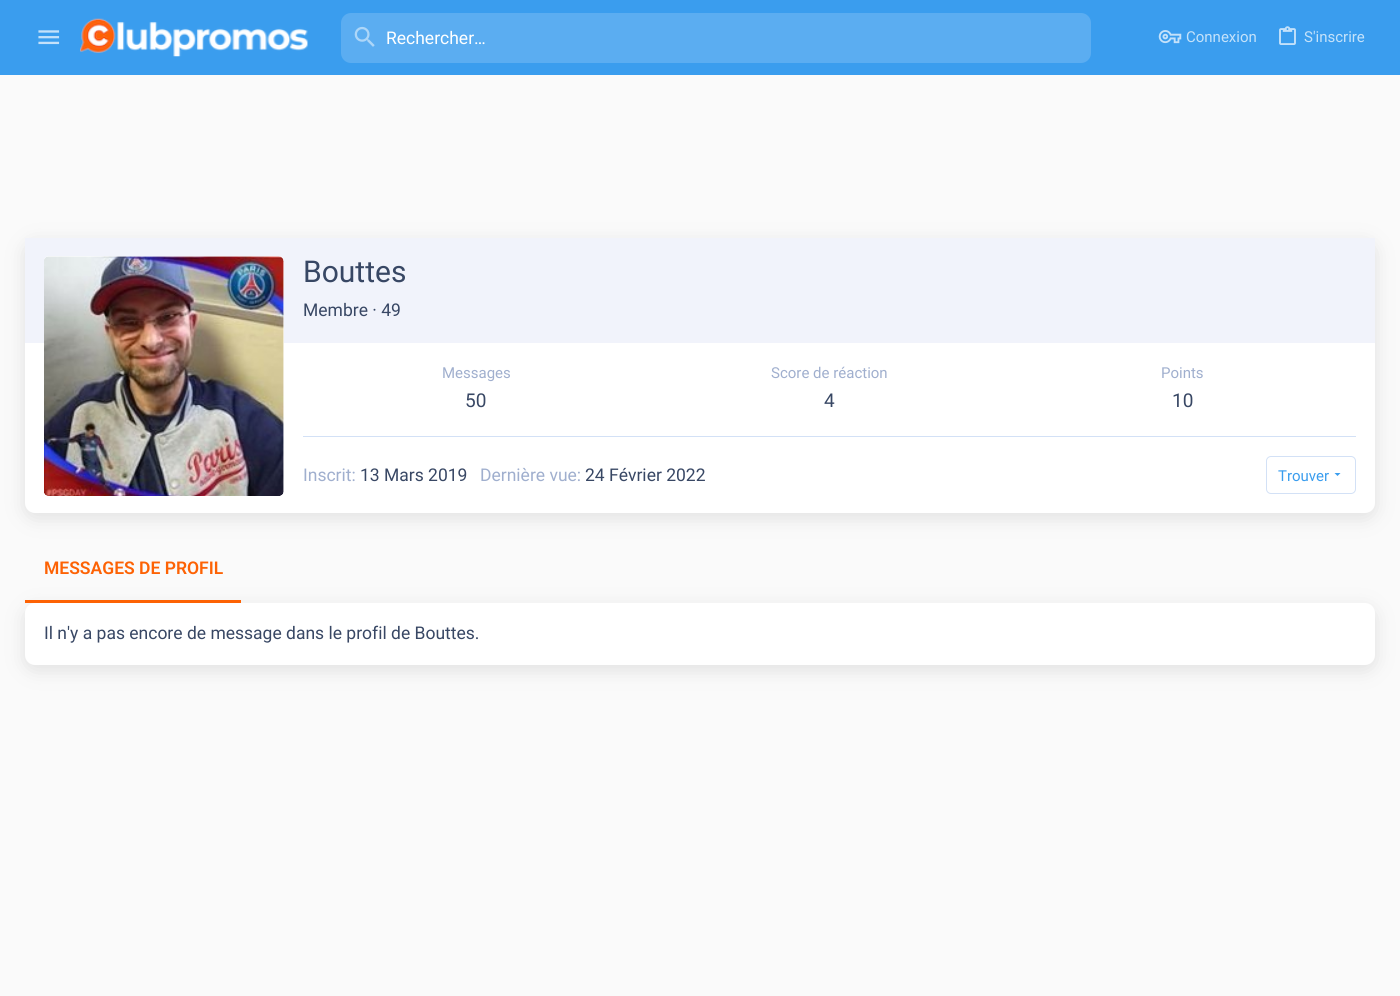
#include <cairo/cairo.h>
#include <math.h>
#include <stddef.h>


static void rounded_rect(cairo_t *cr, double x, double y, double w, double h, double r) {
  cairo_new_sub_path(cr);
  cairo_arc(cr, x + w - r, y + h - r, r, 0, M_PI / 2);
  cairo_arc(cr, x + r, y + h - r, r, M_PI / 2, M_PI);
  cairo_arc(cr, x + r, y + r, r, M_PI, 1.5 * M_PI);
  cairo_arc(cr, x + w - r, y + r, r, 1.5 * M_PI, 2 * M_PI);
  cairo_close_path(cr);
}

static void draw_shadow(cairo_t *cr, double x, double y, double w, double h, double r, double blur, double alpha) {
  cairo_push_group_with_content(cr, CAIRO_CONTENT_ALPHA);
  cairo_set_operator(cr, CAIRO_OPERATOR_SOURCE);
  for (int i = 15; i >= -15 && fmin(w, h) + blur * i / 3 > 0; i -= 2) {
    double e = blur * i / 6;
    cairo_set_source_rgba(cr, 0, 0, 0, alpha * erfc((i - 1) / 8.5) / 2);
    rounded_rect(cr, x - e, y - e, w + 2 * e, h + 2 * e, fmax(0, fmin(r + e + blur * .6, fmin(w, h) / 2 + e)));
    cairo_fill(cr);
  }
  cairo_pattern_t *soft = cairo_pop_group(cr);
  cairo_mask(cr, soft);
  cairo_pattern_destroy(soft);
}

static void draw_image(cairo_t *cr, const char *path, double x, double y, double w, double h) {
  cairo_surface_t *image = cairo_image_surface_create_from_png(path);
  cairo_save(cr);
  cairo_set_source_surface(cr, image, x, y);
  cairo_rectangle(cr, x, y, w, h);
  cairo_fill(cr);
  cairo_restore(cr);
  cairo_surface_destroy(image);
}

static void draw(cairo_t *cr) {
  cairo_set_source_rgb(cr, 250 / 255.0, 250 / 255.0, 250 / 255.0);
  cairo_paint(cr);
  cairo_set_source_rgb(cr, 58 / 255.0, 157 / 255.0, 238 / 255.0);
  cairo_rectangle(cr, 0, 0, 1400, 75);
  cairo_fill(cr);
  draw_image(cr, "images/1.png", 38, 30, 22, 15);
  draw_image(cr, "images/2.png", 80, 18, 228, 39);
  cairo_set_source_rgb(cr, 91 / 255.0, 173 / 255.0, 241 / 255.0);
  rounded_rect(cr, 341, 13, 750, 50, 10);
  cairo_fill(cr);
  draw_image(cr, "images/3.png", 354, 26, 21, 21);
  draw_image(cr, "images/4.png", 1158, 30, 24, 14);
  draw_image(cr, "images/5.png", 1279, 26, 17, 19);
  cairo_set_source_rgb(cr, 119 / 255.0, 119 / 255.0, 119 / 255.0);
  draw_shadow(cr, 25, 243, 1350, 275, 10, 9.5, 0.2);
  cairo_set_source_rgb(cr, 1, 1, 1);
  rounded_rect(cr, 25, 238, 1350, 275, 10);
  cairo_fill(cr);
  cairo_set_source_rgb(cr, 241 / 255.0, 243 / 255.0, 251 / 255.0);
  cairo_rectangle(cr, 25, 238, 1350, 105);
  cairo_fill(cr);
  cairo_set_source_rgb(cr, 1, 1, 1);
  rounded_rect(cr, 44, 256, 240, 240, 5);
  cairo_fill(cr);
  draw_image(cr, "images/6.png", 44, 256, 240, 240);
  cairo_set_source_rgb(cr, 211 / 255.0, 225 / 255.0, 246 / 255.0);
  cairo_rectangle(cr, 303, 436, 1053, 1);
  cairo_fill(cr);
  rounded_rect(cr, 1266.5, 456.5, 89, 37, 4.5);
  cairo_set_line_width(cr, 1);
  cairo_stroke(cr);
  cairo_set_source_rgb(cr, 58 / 255.0, 157 / 255.0, 238 / 255.0);
  cairo_new_path(cr);
  cairo_move_to(cr, 1334.5, 473);
  cairo_line_to(cr, 1337.5, 476);
  cairo_line_to(cr, 1340.5, 473);
  cairo_close_path(cr);
  cairo_fill(cr);
  cairo_set_source_rgb(cr, 119 / 255.0, 119 / 255.0, 119 / 255.0);
  draw_shadow(cr, 25, 608, 1350, 62, 10, 9.5, 0.2);
  cairo_set_source_rgb(cr, 253 / 255.0, 98 / 255.0, 4 / 255.0);
  cairo_rectangle(cr, 25, 600, 216, 3);
  cairo_fill(cr);
  cairo_set_source_rgb(cr, 1, 1, 1);
  rounded_rect(cr, 25, 603, 1350, 62, 10);
  cairo_fill(cr);
  cairo_select_font_face(cr, "Roboto", CAIRO_FONT_SLANT_NORMAL, CAIRO_FONT_WEIGHT_NORMAL);
  cairo_set_font_size(cr, 17.5);
  cairo_move_to(cr, 386, 44);
  cairo_show_text(cr, "Rechercher…");
  cairo_set_font_size(cr, 15);
  cairo_set_source_rgb(cr, 196 / 255.0, 226 / 255.0, 250 / 255.0);
  cairo_move_to(cr, 1186, 42);
  cairo_show_text(cr, "Connexion");
  cairo_move_to(cr, 1304, 42);
  cairo_show_text(cr, "S'inscrire");
  cairo_set_font_size(cr, 30);
  cairo_set_source_rgb(cr, 56 / 255.0, 71 / 255.0, 100 / 255.0);
  cairo_move_to(cr, 303, 282);
  cairo_show_text(cr, "Bouttes");
  cairo_set_font_size(cr, 17.5);
  cairo_move_to(cr, 303, 316);
  cairo_show_text(cr, "Membre · 49");
  cairo_set_font_size(cr, 15);
  cairo_set_source_rgb(cr, 160 / 255.0, 175 / 255.0, 206 / 255.0);
  cairo_move_to(cr, 442, 378);
  cairo_show_text(cr, "Messages");
  cairo_set_font_size(cr, 19);
  cairo_set_source_rgb(cr, 56 / 255.0, 71 / 255.0, 100 / 255.0);
  cairo_move_to(cr, 465, 407);
  cairo_show_text(cr, "50");
  cairo_set_font_size(cr, 15);
  cairo_set_source_rgb(cr, 160 / 255.0, 175 / 255.0, 206 / 255.0);
  cairo_move_to(cr, 771, 378);
  cairo_show_text(cr, "Score de réaction");
  cairo_set_font_size(cr, 19);
  cairo_set_source_rgb(cr, 56 / 255.0, 71 / 255.0, 100 / 255.0);
  cairo_move_to(cr, 824, 407);
  cairo_show_text(cr, "4");
  cairo_set_font_size(cr, 15);
  cairo_set_source_rgb(cr, 160 / 255.0, 175 / 255.0, 206 / 255.0);
  cairo_move_to(cr, 1161, 378);
  cairo_show_text(cr, "Points");
  cairo_set_font_size(cr, 19);
  cairo_set_source_rgb(cr, 56 / 255.0, 71 / 255.0, 100 / 255.0);
  cairo_move_to(cr, 1172, 407);
  cairo_show_text(cr, "10");
  cairo_set_font_size(cr, 17.5);
  cairo_set_source_rgb(cr, 160 / 255.0, 175 / 255.0, 206 / 255.0);
  cairo_move_to(cr, 303, 481);
  cairo_show_text(cr, "Inscrit:");
  cairo_set_source_rgb(cr, 56 / 255.0, 71 / 255.0, 100 / 255.0);
  cairo_move_to(cr, 360, 481);
  cairo_show_text(cr, "13 Mars 2019");
  cairo_set_source_rgb(cr, 160 / 255.0, 175 / 255.0, 206 / 255.0);
  cairo_move_to(cr, 480, 481);
  cairo_show_text(cr, "Dernière vue:");
  cairo_set_source_rgb(cr, 56 / 255.0, 71 / 255.0, 100 / 255.0);
  cairo_move_to(cr, 585, 481);
  cairo_show_text(cr, "24 Février 2022");
  cairo_set_font_size(cr, 15);
  cairo_set_source_rgb(cr, 58 / 255.0, 157 / 255.0, 238 / 255.0);
  cairo_move_to(cr, 1278, 481);
  cairo_show_text(cr, "Trouver");
  cairo_select_font_face(cr, "Roboto SemiBold", CAIRO_FONT_SLANT_NORMAL, CAIRO_FONT_WEIGHT_NORMAL);
  cairo_set_font_size(cr, 17.5);
  cairo_set_source_rgb(cr, 253 / 255.0, 98 / 255.0, 4 / 255.0);
  cairo_move_to(cr, 44, 574);
  cairo_show_text(cr, "MESSAGES DE PROFIL");
  cairo_select_font_face(cr, "Roboto", CAIRO_FONT_SLANT_NORMAL, CAIRO_FONT_WEIGHT_NORMAL);
  cairo_set_source_rgb(cr, 56 / 255.0, 71 / 255.0, 100 / 255.0);
  cairo_move_to(cr, 44, 639);
  cairo_show_text(cr, "Il n'y a pas encore de message dans le profil de Bouttes.");
}

int main(void) {
  cairo_surface_t *surface = cairo_image_surface_create(CAIRO_FORMAT_RGB24, 1400, 996);
  cairo_t *cr = cairo_create(surface);
  cairo_font_options_t *options = cairo_font_options_create();
  cairo_font_options_set_hint_metrics(options, CAIRO_HINT_METRICS_OFF);
  cairo_font_options_set_hint_style(options, CAIRO_HINT_STYLE_NONE);
  cairo_set_font_options(cr, options);
  cairo_set_miter_limit(cr, 4);
  draw(cr);
  cairo_surface_write_to_png(surface, "out.png");
  cairo_font_options_destroy(options);
  cairo_destroy(cr);
  cairo_surface_destroy(surface);
  return 0;
}
